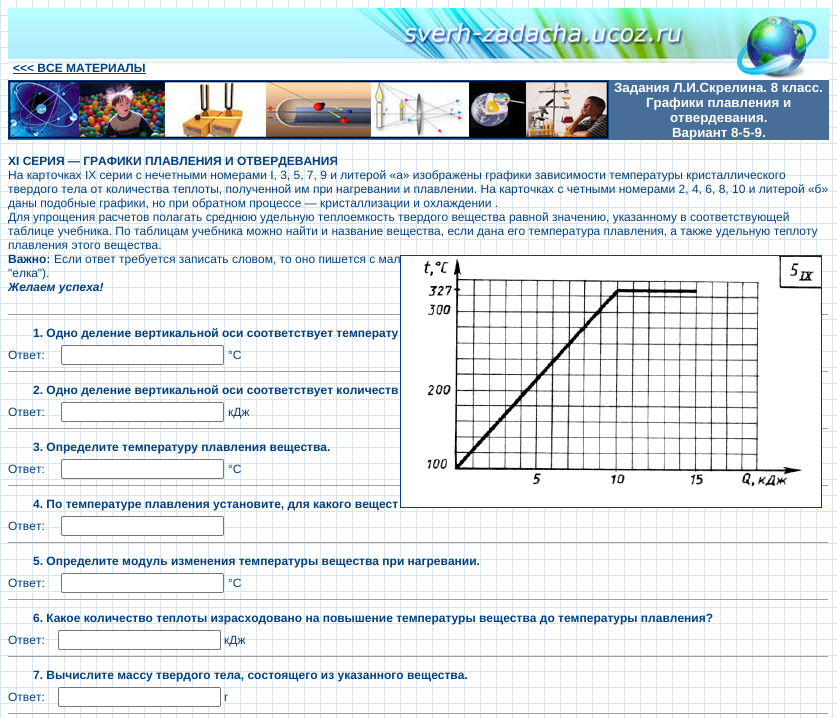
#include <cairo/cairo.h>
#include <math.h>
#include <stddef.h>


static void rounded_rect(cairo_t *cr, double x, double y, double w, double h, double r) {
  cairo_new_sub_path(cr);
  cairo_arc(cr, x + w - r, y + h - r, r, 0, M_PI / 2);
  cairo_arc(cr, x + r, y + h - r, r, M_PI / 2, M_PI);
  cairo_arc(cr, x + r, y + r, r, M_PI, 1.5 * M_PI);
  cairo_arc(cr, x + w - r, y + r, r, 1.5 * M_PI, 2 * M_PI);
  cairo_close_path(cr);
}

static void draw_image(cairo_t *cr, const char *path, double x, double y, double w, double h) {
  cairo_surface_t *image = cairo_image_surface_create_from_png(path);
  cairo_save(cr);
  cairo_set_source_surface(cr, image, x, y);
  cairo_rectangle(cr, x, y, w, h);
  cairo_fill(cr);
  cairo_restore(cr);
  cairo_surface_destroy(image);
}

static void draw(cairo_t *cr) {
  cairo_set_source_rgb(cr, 1, 1, 1);
  cairo_paint(cr);
  draw_image(cr, "images/1.png", 0, 0, 837, 718);
  draw_image(cr, "images/2.png", 8, 8, 331, 72);
  cairo_set_source_rgb(cr, 0, 64 / 255.0, 128 / 255.0);
  cairo_rectangle(cr, 13, 73, 133, 1);
  cairo_fill(cr);
  draw_image(cr, "images/3.png", 339, 8, 490, 72);
  cairo_set_source_rgb(cr, 71 / 255.0, 109 / 255.0, 153 / 255.0);
  cairo_rectangle(cr, 8, 80, 821, 60);
  cairo_fill(cr);
  cairo_rectangle(cr, 8.5, 80.5, 600, 58);
  cairo_set_source_rgb(cr, 0, 64 / 255.0, 128 / 255.0);
  cairo_set_line_width(cr, 1);
  cairo_stroke(cr);
  draw_image(cr, "images/4.png", 9, 81, 599, 57);
  cairo_set_source_rgb(cr, 159 / 255.0, 159 / 255.0, 159 / 255.0);
  cairo_rectangle(cr, 8, 314, 821, 1);
  cairo_fill(cr);
  cairo_rectangle(cr, 8, 371, 821, 1);
  cairo_fill(cr);
  cairo_rectangle(cr, 8, 428, 821, 1);
  cairo_fill(cr);
  cairo_rectangle(cr, 8, 485, 821, 1);
  cairo_fill(cr);
  cairo_rectangle(cr, 400.5, 255.5, 421, 252);
  cairo_set_source_rgb(cr, 0, 64 / 255.0, 128 / 255.0);
  cairo_stroke(cr);
  draw_image(cr, "images/5.png", 401, 256, 420, 251);
  cairo_set_source_rgb(cr, 238 / 255.0, 238 / 255.0, 238 / 255.0);
  cairo_rectangle(cr, 828, 314, 1, 1);
  cairo_fill(cr);
  cairo_set_source_rgb(cr, 1, 1, 1);
  rounded_rect(cr, 61.5, 345.5, 162, 19, 1.5);
  cairo_fill_preserve(cr);
  cairo_set_source_rgb(cr, 118 / 255.0, 118 / 255.0, 118 / 255.0);
  cairo_stroke(cr);
  cairo_set_source_rgb(cr, 238 / 255.0, 238 / 255.0, 238 / 255.0);
  cairo_rectangle(cr, 828, 371, 1, 1);
  cairo_fill(cr);
  cairo_set_source_rgb(cr, 1, 1, 1);
  rounded_rect(cr, 61.5, 402.5, 162, 19, 1.5);
  cairo_fill_preserve(cr);
  cairo_set_source_rgb(cr, 118 / 255.0, 118 / 255.0, 118 / 255.0);
  cairo_stroke(cr);
  cairo_set_source_rgb(cr, 238 / 255.0, 238 / 255.0, 238 / 255.0);
  cairo_rectangle(cr, 828, 428, 1, 1);
  cairo_fill(cr);
  cairo_set_source_rgb(cr, 1, 1, 1);
  rounded_rect(cr, 61.5, 459.5, 162, 19, 1.5);
  cairo_fill_preserve(cr);
  cairo_set_source_rgb(cr, 118 / 255.0, 118 / 255.0, 118 / 255.0);
  cairo_stroke(cr);
  cairo_set_source_rgb(cr, 238 / 255.0, 238 / 255.0, 238 / 255.0);
  cairo_rectangle(cr, 828, 485, 1, 1);
  cairo_fill(cr);
  cairo_set_source_rgb(cr, 1, 1, 1);
  rounded_rect(cr, 61.5, 516.5, 162, 19, 1.5);
  cairo_fill_preserve(cr);
  cairo_set_source_rgb(cr, 118 / 255.0, 118 / 255.0, 118 / 255.0);
  cairo_stroke(cr);
  cairo_set_source_rgb(cr, 159 / 255.0, 159 / 255.0, 159 / 255.0);
  cairo_rectangle(cr, 8, 542, 821, 1);
  cairo_fill(cr);
  cairo_set_source_rgb(cr, 238 / 255.0, 238 / 255.0, 238 / 255.0);
  cairo_rectangle(cr, 828, 542, 1, 1);
  cairo_fill(cr);
  cairo_set_source_rgb(cr, 1, 1, 1);
  rounded_rect(cr, 61.5, 573.5, 162, 19, 1.5);
  cairo_fill_preserve(cr);
  cairo_set_source_rgb(cr, 118 / 255.0, 118 / 255.0, 118 / 255.0);
  cairo_stroke(cr);
  cairo_set_source_rgb(cr, 159 / 255.0, 159 / 255.0, 159 / 255.0);
  cairo_rectangle(cr, 8, 599, 821, 1);
  cairo_fill(cr);
  cairo_set_source_rgb(cr, 238 / 255.0, 238 / 255.0, 238 / 255.0);
  cairo_rectangle(cr, 828, 599, 1, 1);
  cairo_fill(cr);
  cairo_set_source_rgb(cr, 1, 1, 1);
  rounded_rect(cr, 58.5, 630.5, 162, 19, 1.5);
  cairo_fill_preserve(cr);
  cairo_set_source_rgb(cr, 118 / 255.0, 118 / 255.0, 118 / 255.0);
  cairo_stroke(cr);
  cairo_set_source_rgb(cr, 159 / 255.0, 159 / 255.0, 159 / 255.0);
  cairo_rectangle(cr, 8, 656, 821, 1);
  cairo_fill(cr);
  cairo_set_source_rgb(cr, 238 / 255.0, 238 / 255.0, 238 / 255.0);
  cairo_rectangle(cr, 828, 656, 1, 1);
  cairo_fill(cr);
  cairo_set_source_rgb(cr, 1, 1, 1);
  rounded_rect(cr, 58.5, 687.5, 162, 19, 1.5);
  cairo_fill_preserve(cr);
  cairo_set_source_rgb(cr, 118 / 255.0, 118 / 255.0, 118 / 255.0);
  cairo_stroke(cr);
  cairo_set_source_rgb(cr, 159 / 255.0, 159 / 255.0, 159 / 255.0);
  cairo_rectangle(cr, 8, 713, 821, 1);
  cairo_fill(cr);
  cairo_set_source_rgb(cr, 238 / 255.0, 238 / 255.0, 238 / 255.0);
  cairo_rectangle(cr, 828, 713, 1, 1);
  cairo_fill(cr);
  cairo_select_font_face(cr, "Liberation Sans", CAIRO_FONT_SLANT_NORMAL, CAIRO_FONT_WEIGHT_BOLD);
  cairo_set_font_size(cr, 12);
  cairo_set_source_rgb(cr, 0, 64 / 255.0, 128 / 255.0);
  cairo_move_to(cr, 13, 72);
  cairo_show_text(cr, "<<< ВСЕ МАТЕРИАЛЫ");
  cairo_set_font_size(cr, 13.3);
  cairo_set_source_rgb(cr, 1, 1, 1);
  cairo_move_to(cr, 614, 92);
  cairo_show_text(cr, "Задания Л.И.Скрелина. 8 класс.");
  cairo_move_to(cr, 646, 107);
  cairo_show_text(cr, "Графики плавления и");
  cairo_move_to(cr, 670, 122);
  cairo_show_text(cr, "отвердевания.");
  cairo_move_to(cr, 672, 137);
  cairo_show_text(cr, "Вариант 8-5-9.");
  cairo_set_font_size(cr, 12);
  cairo_set_source_rgb(cr, 0, 64 / 255.0, 128 / 255.0);
  cairo_move_to(cr, 8, 165);
  cairo_show_text(cr, "XI СЕРИЯ — ГРАФИКИ ПЛАВЛЕНИЯ И ОТВЕРДЕВАНИЯ");
  cairo_select_font_face(cr, "Liberation Sans", CAIRO_FONT_SLANT_NORMAL, CAIRO_FONT_WEIGHT_NORMAL);
  cairo_move_to(cr, 8, 179);
  cairo_show_text(cr, "На карточках IX серии с нечетными номерами I, 3, 5, 7, 9 и литерой «а» изображены графики зависимости температуры кристаллического");
  cairo_move_to(cr, 8, 193);
  cairo_show_text(cr, "твердого тела от количества теплоты, полученной им при нагревании и плавлении. На карточках с четными номерами 2, 4, 6, 8, 10 и литерой «б»");
  cairo_move_to(cr, 8, 207);
  cairo_show_text(cr, "даны подобные графики, но при обратном процессе — кристаллизации и охлаждении .");
  cairo_move_to(cr, 8, 221);
  cairo_show_text(cr, "Для упрощения расчетов полагать среднюю удельную теплоемкость твердого вещества равной значению, указанному в соответствующей");
  cairo_move_to(cr, 8, 235);
  cairo_show_text(cr, "таблице учебника. По таблицам учебника можно найти и название вещества, если дана его температура плавления, а также удельную теплоту");
  cairo_move_to(cr, 8, 249);
  cairo_show_text(cr, "плавления этого вещества.");
  cairo_select_font_face(cr, "Liberation Sans", CAIRO_FONT_SLANT_NORMAL, CAIRO_FONT_WEIGHT_BOLD);
  cairo_move_to(cr, 8, 263);
  cairo_show_text(cr, "Важно:");
  cairo_select_font_face(cr, "Liberation Sans", CAIRO_FONT_SLANT_NORMAL, CAIRO_FONT_WEIGHT_NORMAL);
  cairo_move_to(cr, 54, 263);
  cairo_show_text(cr, "Если ответ требуется записать словом, то оно пишется с мал");
  cairo_move_to(cr, 8, 277);
  cairo_show_text(cr, "\"елка\").");
  cairo_select_font_face(cr, "Liberation Sans", CAIRO_FONT_SLANT_ITALIC, CAIRO_FONT_WEIGHT_BOLD);
  cairo_move_to(cr, 8, 291);
  cairo_show_text(cr, "Желаем успеха!");
  cairo_select_font_face(cr, "Liberation Sans", CAIRO_FONT_SLANT_NORMAL, CAIRO_FONT_WEIGHT_BOLD);
  cairo_move_to(cr, 33, 337);
  cairo_show_text(cr, "1. Одно деление вертикальной оси соответствует температу");
  cairo_select_font_face(cr, "Liberation Sans", CAIRO_FONT_SLANT_NORMAL, CAIRO_FONT_WEIGHT_NORMAL);
  cairo_move_to(cr, 8, 359);
  cairo_show_text(cr, "Ответ:");
  cairo_move_to(cr, 228, 359);
  cairo_show_text(cr, "°С");
  cairo_select_font_face(cr, "Liberation Sans", CAIRO_FONT_SLANT_NORMAL, CAIRO_FONT_WEIGHT_BOLD);
  cairo_move_to(cr, 33, 394);
  cairo_show_text(cr, "2. Одно деление вертикальной оси соответствует количеств");
  cairo_select_font_face(cr, "Liberation Sans", CAIRO_FONT_SLANT_NORMAL, CAIRO_FONT_WEIGHT_NORMAL);
  cairo_move_to(cr, 8, 416);
  cairo_show_text(cr, "Ответ:");
  cairo_move_to(cr, 228, 416);
  cairo_show_text(cr, "кДж");
  cairo_select_font_face(cr, "Liberation Sans", CAIRO_FONT_SLANT_NORMAL, CAIRO_FONT_WEIGHT_BOLD);
  cairo_move_to(cr, 33, 451);
  cairo_show_text(cr, "3. Определите температуру плавления вещества.");
  cairo_select_font_face(cr, "Liberation Sans", CAIRO_FONT_SLANT_NORMAL, CAIRO_FONT_WEIGHT_NORMAL);
  cairo_move_to(cr, 8, 473);
  cairo_show_text(cr, "Ответ:");
  cairo_move_to(cr, 228, 473);
  cairo_show_text(cr, "°С");
  cairo_select_font_face(cr, "Liberation Sans", CAIRO_FONT_SLANT_NORMAL, CAIRO_FONT_WEIGHT_BOLD);
  cairo_move_to(cr, 33, 508);
  cairo_show_text(cr, "4. По температуре плавления установите, для какого вещест");
  cairo_select_font_face(cr, "Liberation Sans", CAIRO_FONT_SLANT_NORMAL, CAIRO_FONT_WEIGHT_NORMAL);
  cairo_move_to(cr, 8, 530);
  cairo_show_text(cr, "Ответ:");
  cairo_select_font_face(cr, "Liberation Sans", CAIRO_FONT_SLANT_NORMAL, CAIRO_FONT_WEIGHT_BOLD);
  cairo_move_to(cr, 33, 565);
  cairo_show_text(cr, "5. Определите модуль изменения температуры вещества при нагревании.");
  cairo_select_font_face(cr, "Liberation Sans", CAIRO_FONT_SLANT_NORMAL, CAIRO_FONT_WEIGHT_NORMAL);
  cairo_move_to(cr, 8, 587);
  cairo_show_text(cr, "Ответ:");
  cairo_move_to(cr, 228, 587);
  cairo_show_text(cr, "°С");
  cairo_select_font_face(cr, "Liberation Sans", CAIRO_FONT_SLANT_NORMAL, CAIRO_FONT_WEIGHT_BOLD);
  cairo_move_to(cr, 33, 622);
  cairo_show_text(cr, "6. Какое количество теплоты израсходовано на повышение температуры вещества до температуры плавления?");
  cairo_select_font_face(cr, "Liberation Sans", CAIRO_FONT_SLANT_NORMAL, CAIRO_FONT_WEIGHT_NORMAL);
  cairo_move_to(cr, 8, 644);
  cairo_show_text(cr, "Ответ:");
  cairo_move_to(cr, 224, 644);
  cairo_show_text(cr, "кДж");
  cairo_select_font_face(cr, "Liberation Sans", CAIRO_FONT_SLANT_NORMAL, CAIRO_FONT_WEIGHT_BOLD);
  cairo_move_to(cr, 33, 679);
  cairo_show_text(cr, "7. Вычислите массу твердого тела, состоящего из указанного вещества.");
  cairo_select_font_face(cr, "Liberation Sans", CAIRO_FONT_SLANT_NORMAL, CAIRO_FONT_WEIGHT_NORMAL);
  cairo_move_to(cr, 8, 701);
  cairo_show_text(cr, "Ответ:");
  cairo_move_to(cr, 224, 701);
  cairo_show_text(cr, "г");
}

int main(void) {
  cairo_surface_t *surface = cairo_image_surface_create(CAIRO_FORMAT_RGB24, 837, 718);
  cairo_t *cr = cairo_create(surface);
  cairo_font_options_t *options = cairo_font_options_create();
  cairo_font_options_set_hint_metrics(options, CAIRO_HINT_METRICS_OFF);
  cairo_font_options_set_hint_style(options, CAIRO_HINT_STYLE_NONE);
  cairo_set_font_options(cr, options);
  cairo_set_miter_limit(cr, 4);
  draw(cr);
  cairo_surface_write_to_png(surface, "out.png");
  cairo_font_options_destroy(options);
  cairo_destroy(cr);
  cairo_surface_destroy(surface);
  return 0;
}
